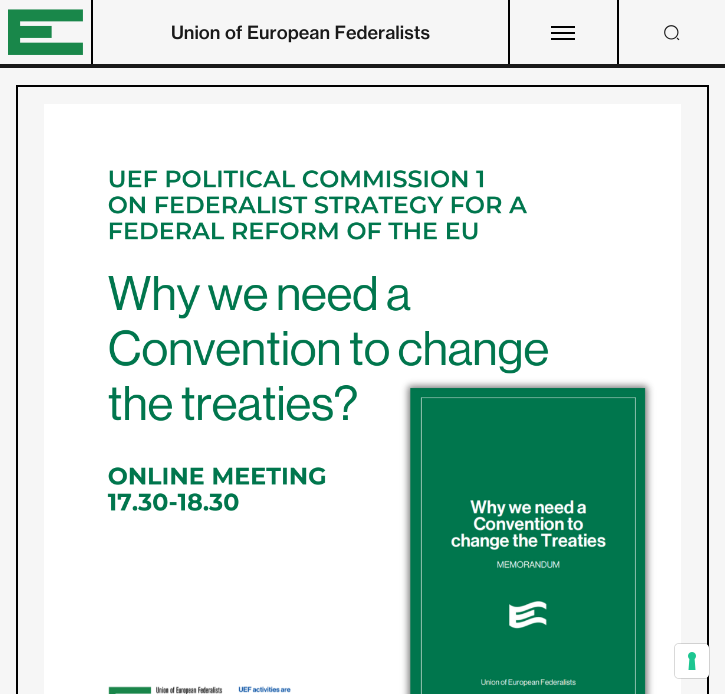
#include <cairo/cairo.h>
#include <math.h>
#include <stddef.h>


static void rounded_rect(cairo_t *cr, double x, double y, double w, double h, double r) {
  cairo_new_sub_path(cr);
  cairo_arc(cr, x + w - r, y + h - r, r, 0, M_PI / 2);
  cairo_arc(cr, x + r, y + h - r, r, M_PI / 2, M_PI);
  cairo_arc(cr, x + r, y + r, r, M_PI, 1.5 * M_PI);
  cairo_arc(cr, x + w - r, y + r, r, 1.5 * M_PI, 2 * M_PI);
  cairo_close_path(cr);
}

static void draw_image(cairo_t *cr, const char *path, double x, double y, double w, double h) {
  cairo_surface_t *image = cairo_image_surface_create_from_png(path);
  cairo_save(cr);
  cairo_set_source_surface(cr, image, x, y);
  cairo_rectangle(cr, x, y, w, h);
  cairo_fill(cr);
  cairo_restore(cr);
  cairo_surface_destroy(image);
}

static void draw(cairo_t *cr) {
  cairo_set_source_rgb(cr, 246 / 255.0, 246 / 255.0, 246 / 255.0);
  cairo_paint(cr);
  cairo_set_source_rgb(cr, 25 / 255.0, 25 / 255.0, 25 / 255.0);
  cairo_rectangle(cr, 0, 64, 725, 4);
  cairo_fill(cr);
  draw_image(cr, "images/1.png", 8, 9, 75, 46);
  cairo_set_source_rgb(cr, 0, 0, 0);
  cairo_rectangle(cr, 91, 0, 2, 64);
  cairo_fill(cr);
  cairo_rectangle(cr, 508, 0, 2, 64);
  cairo_fill(cr);
  cairo_rectangle(cr, 551, 26, 24, 2);
  cairo_fill(cr);
  cairo_rectangle(cr, 551, 32, 24, 2);
  cairo_fill(cr);
  cairo_rectangle(cr, 551, 38, 24, 2);
  cairo_fill(cr);
  cairo_rectangle(cr, 617, 0, 2, 64);
  cairo_fill(cr);
  draw_image(cr, "images/2.png", 664, 25, 16, 16);
  cairo_rectangle(cr, 17, 86, 691, 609);
  cairo_stroke(cr);
  draw_image(cr, "images/3.png", 44, 104, 637, 590);
  rounded_rect(cr, 674.5, 643.5, 35, 35, 4.5);
  cairo_set_source_rgba(cr, 0, 0, 0, 0.15);
  cairo_set_line_width(cr, 1);
  cairo_stroke(cr);
  cairo_set_source_rgb(cr, 1, 1, 1);
  rounded_rect(cr, 675, 644, 34, 34, 4);
  cairo_fill(cr);
  draw_image(cr, "images/4.png", 688, 652, 8, 18);
  cairo_select_font_face(cr, "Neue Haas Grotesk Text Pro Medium", CAIRO_FONT_SLANT_NORMAL, CAIRO_FONT_WEIGHT_NORMAL);
  cairo_set_font_size(cr, 18);
  cairo_set_source_rgb(cr, 25 / 255.0, 25 / 255.0, 25 / 255.0);
  cairo_move_to(cr, 171, 39);
  cairo_show_text(cr, "Union of European Federalists");
}

int main(void) {
  cairo_surface_t *surface = cairo_image_surface_create(CAIRO_FORMAT_RGB24, 725, 694);
  cairo_t *cr = cairo_create(surface);
  cairo_font_options_t *options = cairo_font_options_create();
  cairo_font_options_set_hint_metrics(options, CAIRO_HINT_METRICS_OFF);
  cairo_font_options_set_hint_style(options, CAIRO_HINT_STYLE_NONE);
  cairo_set_font_options(cr, options);
  cairo_set_miter_limit(cr, 4);
  draw(cr);
  cairo_surface_write_to_png(surface, "out.png");
  cairo_font_options_destroy(options);
  cairo_destroy(cr);
  cairo_surface_destroy(surface);
  return 0;
}
